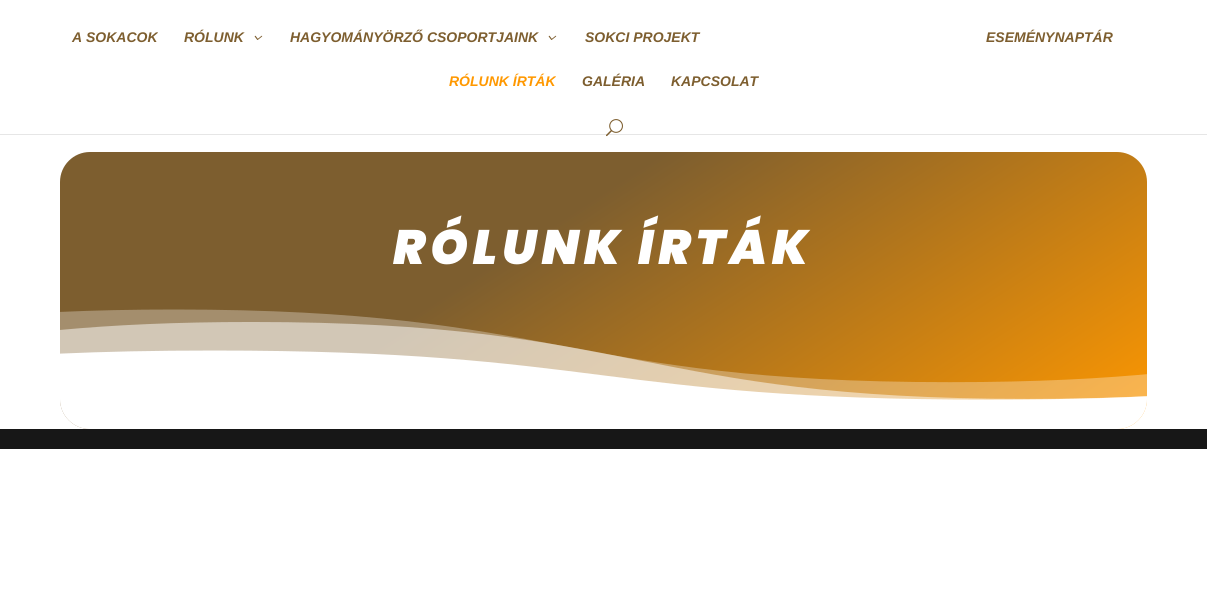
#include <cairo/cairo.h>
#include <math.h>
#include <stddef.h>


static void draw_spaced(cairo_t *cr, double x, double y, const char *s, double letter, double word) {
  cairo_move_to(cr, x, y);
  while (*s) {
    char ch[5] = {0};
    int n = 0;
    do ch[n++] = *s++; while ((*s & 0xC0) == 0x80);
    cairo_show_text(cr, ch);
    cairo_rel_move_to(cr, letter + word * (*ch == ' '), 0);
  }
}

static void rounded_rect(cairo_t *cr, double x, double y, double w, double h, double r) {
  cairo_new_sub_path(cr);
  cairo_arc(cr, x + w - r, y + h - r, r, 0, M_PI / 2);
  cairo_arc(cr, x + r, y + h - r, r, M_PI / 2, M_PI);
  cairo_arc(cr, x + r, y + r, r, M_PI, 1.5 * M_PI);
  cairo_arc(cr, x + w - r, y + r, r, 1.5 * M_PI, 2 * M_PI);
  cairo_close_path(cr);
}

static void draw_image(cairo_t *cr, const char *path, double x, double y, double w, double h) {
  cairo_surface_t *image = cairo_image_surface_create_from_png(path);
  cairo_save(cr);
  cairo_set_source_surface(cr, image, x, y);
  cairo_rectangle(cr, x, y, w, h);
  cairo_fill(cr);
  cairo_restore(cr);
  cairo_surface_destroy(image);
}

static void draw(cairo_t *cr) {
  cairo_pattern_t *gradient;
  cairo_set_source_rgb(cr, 1, 1, 1);
  cairo_paint(cr);
  cairo_set_source_rgb(cr, 230 / 255.0, 230 / 255.0, 230 / 255.0);
  cairo_rectangle(cr, 0, 134, 1207, 1);
  cairo_fill(cr);
  draw_image(cr, "images/1.png", 254, 35, 9, 5);
  draw_image(cr, "images/1.png", 548, 35, 9, 5);
  draw_image(cr, "images/2.png", 606, 119, 17, 18);
  gradient = cairo_pattern_create_linear(379, -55, 828, 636);
  cairo_pattern_add_color_stop_rgba(gradient, 0.4, 125 / 255.0, 94 / 255.0, 47 / 255.0, 1);
  cairo_pattern_add_color_stop_rgba(gradient, 1, 1, 152 / 255.0, 0, 1);
  cairo_set_source(cr, gradient);
  cairo_pattern_destroy(gradient);
  rounded_rect(cr, 60, 152, 1087, 277, 30);
  cairo_fill(cr);
  draw_image(cr, "images/3.png", 60, 309, 1087, 120);
  cairo_set_source_rgb(cr, 23 / 255.0, 23 / 255.0, 23 / 255.0);
  cairo_rectangle(cr, 0, 429, 1207, 20);
  cairo_fill(cr);
  cairo_select_font_face(cr, "Liberation Sans", CAIRO_FONT_SLANT_ITALIC, CAIRO_FONT_WEIGHT_BOLD);
  cairo_set_font_size(cr, 14);
  cairo_set_source_rgb(cr, 125 / 255.0, 94 / 255.0, 47 / 255.0);
  cairo_move_to(cr, 72, 42);
  cairo_show_text(cr, "A SOKACOK");
  cairo_move_to(cr, 184, 42);
  cairo_show_text(cr, "RÓLUNK");
  cairo_move_to(cr, 290, 42);
  cairo_show_text(cr, "HAGYOMÁNYÖRZŐ CSOPORTJAINK");
  cairo_move_to(cr, 585, 42);
  cairo_show_text(cr, "SOKCI PROJEKT");
  cairo_move_to(cr, 986, 42);
  cairo_show_text(cr, "ESEMÉNYNAPTÁR");
  cairo_set_source_rgb(cr, 1, 152 / 255.0, 0);
  cairo_move_to(cr, 449, 86);
  cairo_show_text(cr, "RÓLUNK ÍRTÁK");
  cairo_set_source_rgb(cr, 125 / 255.0, 94 / 255.0, 47 / 255.0);
  cairo_move_to(cr, 582, 86);
  cairo_show_text(cr, "GALÉRIA");
  cairo_move_to(cr, 671, 86);
  cairo_show_text(cr, "KAPCSOLAT");
  cairo_select_font_face(cr, "Poppins Black", CAIRO_FONT_SLANT_ITALIC, CAIRO_FONT_WEIGHT_NORMAL);
  cairo_set_font_size(cr, 48.25);
  cairo_set_source_rgb(cr, 1, 1, 1);
  draw_spaced(cr, 393, 264, "RÓLUNK ÍRTÁK", 4.75, 0);
}

int main(void) {
  cairo_surface_t *surface = cairo_image_surface_create(CAIRO_FORMAT_RGB24, 1207, 604);
  cairo_t *cr = cairo_create(surface);
  cairo_font_options_t *options = cairo_font_options_create();
  cairo_font_options_set_hint_metrics(options, CAIRO_HINT_METRICS_OFF);
  cairo_font_options_set_hint_style(options, CAIRO_HINT_STYLE_NONE);
  cairo_set_font_options(cr, options);
  cairo_set_miter_limit(cr, 4);
  draw(cr);
  cairo_surface_write_to_png(surface, "out.png");
  cairo_font_options_destroy(options);
  cairo_destroy(cr);
  cairo_surface_destroy(surface);
  return 0;
}
